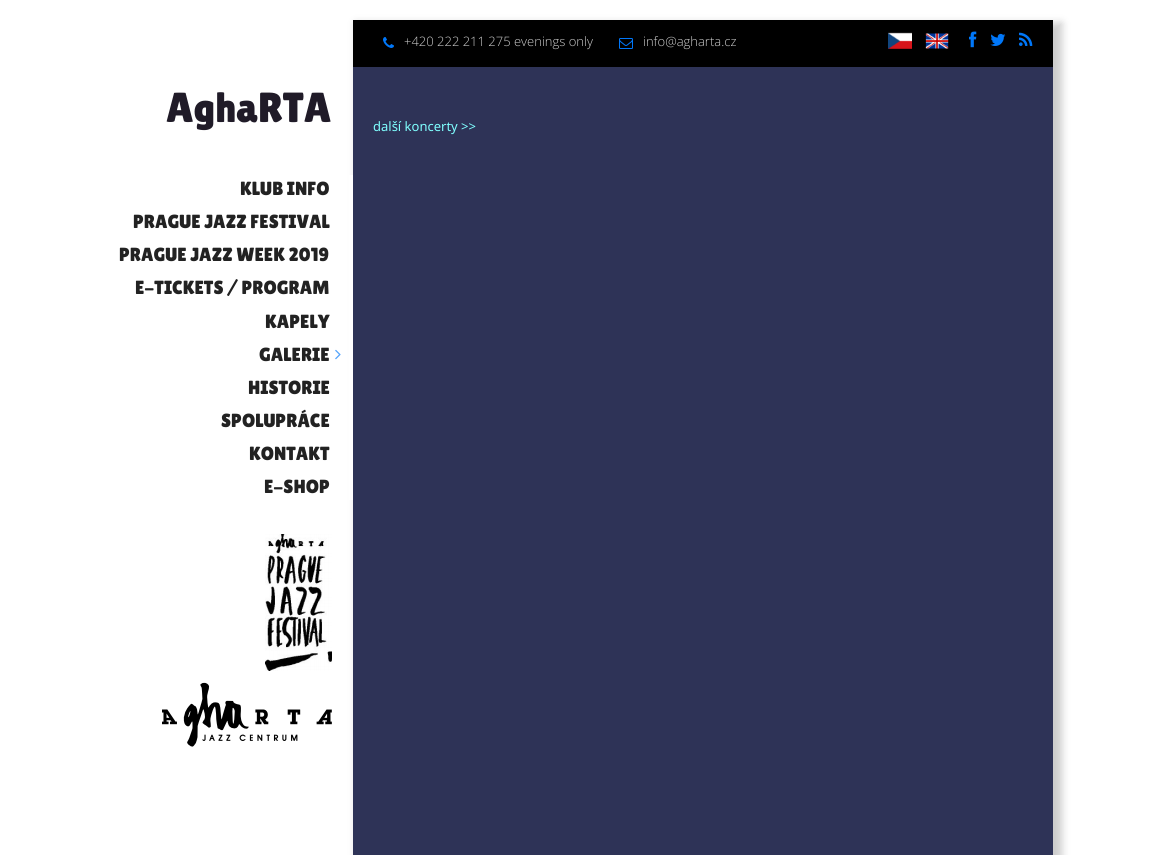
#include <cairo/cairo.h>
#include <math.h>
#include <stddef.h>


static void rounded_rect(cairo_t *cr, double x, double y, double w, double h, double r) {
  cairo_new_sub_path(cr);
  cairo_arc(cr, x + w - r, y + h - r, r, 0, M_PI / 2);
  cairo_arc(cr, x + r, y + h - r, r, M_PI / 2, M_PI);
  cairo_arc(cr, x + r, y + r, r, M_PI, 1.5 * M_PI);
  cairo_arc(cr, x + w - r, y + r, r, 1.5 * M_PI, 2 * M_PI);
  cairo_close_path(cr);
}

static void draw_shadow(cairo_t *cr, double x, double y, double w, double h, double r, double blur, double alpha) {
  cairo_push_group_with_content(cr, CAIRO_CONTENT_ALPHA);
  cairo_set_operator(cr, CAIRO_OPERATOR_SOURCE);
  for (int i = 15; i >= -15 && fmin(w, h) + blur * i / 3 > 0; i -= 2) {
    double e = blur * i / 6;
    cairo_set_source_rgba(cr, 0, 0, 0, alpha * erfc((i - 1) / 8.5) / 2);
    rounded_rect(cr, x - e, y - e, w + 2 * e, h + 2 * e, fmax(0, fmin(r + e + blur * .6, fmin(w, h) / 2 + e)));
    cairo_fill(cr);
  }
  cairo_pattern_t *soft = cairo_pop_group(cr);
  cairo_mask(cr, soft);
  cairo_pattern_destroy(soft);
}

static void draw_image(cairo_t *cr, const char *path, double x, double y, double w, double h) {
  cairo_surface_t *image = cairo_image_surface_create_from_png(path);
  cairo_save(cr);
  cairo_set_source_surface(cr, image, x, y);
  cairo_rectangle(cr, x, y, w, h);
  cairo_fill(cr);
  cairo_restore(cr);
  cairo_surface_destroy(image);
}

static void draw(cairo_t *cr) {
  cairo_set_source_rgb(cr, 1, 1, 1);
  cairo_paint(cr);
  cairo_set_source_rgb(cr, 204 / 255.0, 204 / 255.0, 204 / 255.0);
  draw_shadow(cr, 356, 23, 706, 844, 0, 4, 1);
  cairo_set_source_rgb(cr, 1, 1, 1);
  cairo_rectangle(cr, 349, 175, 4, 325);
  cairo_fill(cr);
  draw_image(cr, "images/1.png", 335, 349, 6, 11);
  draw_image(cr, "images/2.png", 162, 534, 170, 213);
  cairo_set_source_rgb(cr, 0, 0, 0);
  cairo_rectangle(cr, 353, 20, 700, 47);
  cairo_fill(cr);
  draw_image(cr, "images/3.png", 383, 37, 11, 11);
  draw_image(cr, "images/4.png", 619, 38, 14, 11);
  draw_image(cr, "images/5.png", 888, 32, 24, 17);
  draw_image(cr, "images/6.png", 925, 33, 24, 16);
  draw_image(cr, "images/7.png", 969, 31, 8, 17);
  draw_image(cr, "images/8.png", 990, 33, 16, 13);
  draw_image(cr, "images/9.png", 1019, 32, 14, 14);
  cairo_set_source_rgb(cr, 46 / 255.0, 51 / 255.0, 87 / 255.0);
  cairo_rectangle(cr, 353, 67, 700, 788);
  cairo_fill(cr);
  cairo_select_font_face(cr, "Lilita One", CAIRO_FONT_SLANT_NORMAL, CAIRO_FONT_WEIGHT_NORMAL);
  cairo_set_font_size(cr, 42);
  cairo_set_source_rgb(cr, 32 / 255.0, 27 / 255.0, 40 / 255.0);
  cairo_move_to(cr, 166, 122);
  cairo_show_text(cr, "AghaRTA");
  cairo_set_font_size(cr, 19);
  cairo_set_source_rgb(cr, 34 / 255.0, 34 / 255.0, 34 / 255.0);
  cairo_move_to(cr, 240, 195);
  cairo_show_text(cr, "KLUB INFO");
  cairo_move_to(cr, 133, 228);
  cairo_show_text(cr, "PRAGUE JAZZ FESTIVAL");
  cairo_move_to(cr, 119, 261);
  cairo_show_text(cr, "PRAGUE JAZZ WEEK 2019");
  cairo_move_to(cr, 135, 294);
  cairo_show_text(cr, "E-TICKETS / PROGRAM");
  cairo_move_to(cr, 265, 328);
  cairo_show_text(cr, "KAPELY");
  cairo_move_to(cr, 259, 361);
  cairo_show_text(cr, "GALERIE");
  cairo_move_to(cr, 248, 394);
  cairo_show_text(cr, "HISTORIE");
  cairo_move_to(cr, 221, 427);
  cairo_show_text(cr, "SPOLUPRÁCE");
  cairo_move_to(cr, 249, 460);
  cairo_show_text(cr, "KONTAKT");
  cairo_move_to(cr, 264, 493);
  cairo_show_text(cr, "E-SHOP");
  cairo_select_font_face(cr, "Open Sans Light", CAIRO_FONT_SLANT_NORMAL, CAIRO_FONT_WEIGHT_NORMAL);
  cairo_set_font_size(cr, 13);
  cairo_set_source_rgb(cr, 204 / 255.0, 204 / 255.0, 204 / 255.0);
  cairo_move_to(cr, 404, 46);
  cairo_show_text(cr, "+420 222 211 275 evenings only");
  cairo_move_to(cr, 643, 46);
  cairo_show_text(cr, "info@agharta.cz");
  cairo_select_font_face(cr, "Noto Sans", CAIRO_FONT_SLANT_NORMAL, CAIRO_FONT_WEIGHT_NORMAL);
  cairo_set_source_rgb(cr, 127 / 255.0, 1, 1);
  cairo_move_to(cr, 373, 131);
  cairo_show_text(cr, "další koncerty >>");
}

int main(void) {
  cairo_surface_t *surface = cairo_image_surface_create(CAIRO_FORMAT_RGB24, 1165, 855);
  cairo_t *cr = cairo_create(surface);
  cairo_font_options_t *options = cairo_font_options_create();
  cairo_font_options_set_hint_metrics(options, CAIRO_HINT_METRICS_OFF);
  cairo_font_options_set_hint_style(options, CAIRO_HINT_STYLE_NONE);
  cairo_set_font_options(cr, options);
  cairo_set_miter_limit(cr, 4);
  draw(cr);
  cairo_surface_write_to_png(surface, "out.png");
  cairo_font_options_destroy(options);
  cairo_destroy(cr);
  cairo_surface_destroy(surface);
  return 0;
}
